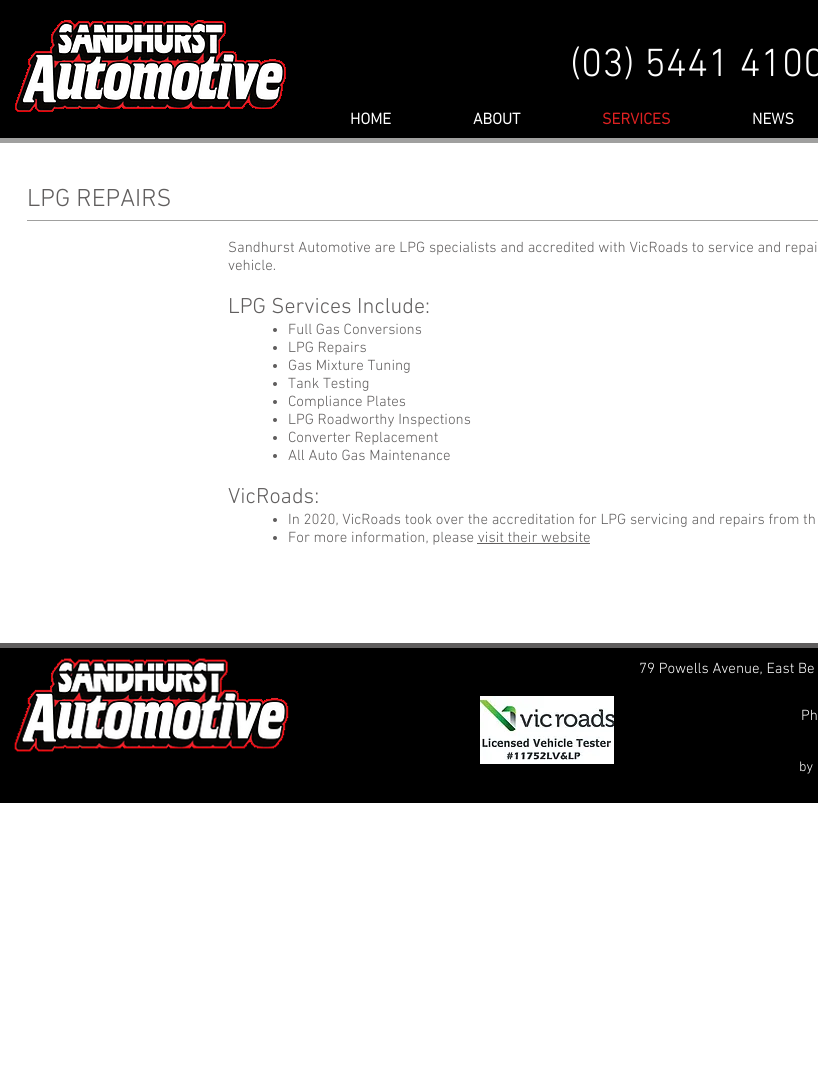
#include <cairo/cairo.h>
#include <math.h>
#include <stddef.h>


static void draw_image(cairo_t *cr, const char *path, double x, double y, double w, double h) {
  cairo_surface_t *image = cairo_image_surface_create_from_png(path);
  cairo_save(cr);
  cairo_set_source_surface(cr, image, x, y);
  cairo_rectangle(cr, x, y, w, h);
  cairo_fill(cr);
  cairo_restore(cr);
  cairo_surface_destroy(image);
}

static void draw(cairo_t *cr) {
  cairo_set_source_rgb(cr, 1, 1, 1);
  cairo_paint(cr);
  cairo_set_source_rgb(cr, 0, 0, 0);
  cairo_rectangle(cr, 0, 0, 818, 138);
  cairo_fill(cr);
  cairo_set_source_rgb(cr, 160 / 255.0, 160 / 255.0, 159 / 255.0);
  cairo_rectangle(cr, 0, 138, 818, 5);
  cairo_fill(cr);
  draw_image(cr, "images/1.png", 15, 20, 271, 92);
  cairo_rectangle(cr, 27, 220, 791, 1);
  cairo_fill(cr);
  cairo_set_source_rgb(cr, 96 / 255.0, 94 / 255.0, 94 / 255.0);
  cairo_arc(cr, 275, 330, 2, 0, 2 * M_PI);
  cairo_fill(cr);
  cairo_arc(cr, 275, 348, 2, 0, 2 * M_PI);
  cairo_fill(cr);
  cairo_arc(cr, 275, 366, 2, 0, 2 * M_PI);
  cairo_fill(cr);
  cairo_arc(cr, 275, 384, 2, 0, 2 * M_PI);
  cairo_fill(cr);
  cairo_arc(cr, 275, 402, 2, 0, 2 * M_PI);
  cairo_fill(cr);
  cairo_arc(cr, 275, 420, 2, 0, 2 * M_PI);
  cairo_fill(cr);
  cairo_arc(cr, 275, 438, 2, 0, 2 * M_PI);
  cairo_fill(cr);
  cairo_arc(cr, 275, 456, 2, 0, 2 * M_PI);
  cairo_fill(cr);
  cairo_arc(cr, 275, 520, 2, 0, 2 * M_PI);
  cairo_fill(cr);
  cairo_arc(cr, 275, 538, 2, 0, 2 * M_PI);
  cairo_fill(cr);
  cairo_rectangle(cr, 477, 543, 113, 1);
  cairo_fill(cr);
  cairo_set_source_rgb(cr, 0, 0, 0);
  cairo_rectangle(cr, 0, 648, 818, 155);
  cairo_fill(cr);
  cairo_set_source_rgb(cr, 96 / 255.0, 94 / 255.0, 94 / 255.0);
  cairo_rectangle(cr, 0, 643, 818, 5);
  cairo_fill(cr);
  draw_image(cr, "images/2.png", 14, 658, 275, 94);
  draw_image(cr, "images/3.png", 480, 696, 134, 68);
  cairo_select_font_face(cr, "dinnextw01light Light", CAIRO_FONT_SLANT_NORMAL, CAIRO_FONT_WEIGHT_NORMAL);
  cairo_set_font_size(cr, 40);
  cairo_set_source_rgb(cr, 1, 1, 1);
  cairo_move_to(cr, 570, 76);
  cairo_show_text(cr, "(03) 5441 4100");
  cairo_select_font_face(cr, "dinnextw01light", CAIRO_FONT_SLANT_NORMAL, CAIRO_FONT_WEIGHT_BOLD);
  cairo_set_font_size(cr, 16);
  cairo_move_to(cr, 350, 124);
  cairo_show_text(cr, "HOME");
  cairo_move_to(cr, 473, 124);
  cairo_show_text(cr, "ABOUT");
  cairo_set_source_rgb(cr, 222 / 255.0, 33 / 255.0, 33 / 255.0);
  cairo_move_to(cr, 602, 124);
  cairo_show_text(cr, "SERVICES");
  cairo_set_source_rgb(cr, 1, 1, 1);
  cairo_move_to(cr, 752, 124);
  cairo_show_text(cr, "NEWS");
  cairo_select_font_face(cr, "dinnextw01light Light", CAIRO_FONT_SLANT_NORMAL, CAIRO_FONT_WEIGHT_NORMAL);
  cairo_set_font_size(cr, 25);
  cairo_set_source_rgb(cr, 96 / 255.0, 94 / 255.0, 94 / 255.0);
  cairo_move_to(cr, 27, 206);
  cairo_show_text(cr, "LPG REPAIRS");
  cairo_set_font_size(cr, 15);
  cairo_move_to(cr, 228, 252);
  cairo_show_text(cr, "Sandhurst Automotive are LPG specialists and accredited with VicRoads to service and repai");
  cairo_move_to(cr, 228, 270);
  cairo_show_text(cr, "vehicle.");
  cairo_set_font_size(cr, 22);
  cairo_move_to(cr, 228, 313);
  cairo_show_text(cr, "LPG Services Include:");
  cairo_set_font_size(cr, 15);
  cairo_move_to(cr, 288, 334);
  cairo_show_text(cr, "Full Gas Conversions");
  cairo_move_to(cr, 288, 352);
  cairo_show_text(cr, "LPG Repairs");
  cairo_move_to(cr, 288, 370);
  cairo_show_text(cr, "Gas Mixture Tuning");
  cairo_move_to(cr, 288, 388);
  cairo_show_text(cr, "Tank Testing");
  cairo_move_to(cr, 288, 406);
  cairo_show_text(cr, "Compliance Plates");
  cairo_move_to(cr, 288, 424);
  cairo_show_text(cr, "LPG Roadworthy Inspections");
  cairo_move_to(cr, 288, 442);
  cairo_show_text(cr, "Converter Replacement");
  cairo_move_to(cr, 288, 460);
  cairo_show_text(cr, "All Auto Gas Maintenance");
  cairo_set_font_size(cr, 22);
  cairo_move_to(cr, 228, 503);
  cairo_show_text(cr, "VicRoads:");
  cairo_set_font_size(cr, 15);
  cairo_move_to(cr, 288, 524);
  cairo_show_text(cr, "In 2020, VicRoads took over the accreditation for LPG servicing and repairs from th");
  cairo_move_to(cr, 288, 542);
  cairo_show_text(cr, "For more information, please visit their website");
  cairo_set_source_rgb(cr, 1, 1, 1);
  cairo_move_to(cr, 639, 673);
  cairo_show_text(cr, "79 Powells Avenue, East Be");
  cairo_move_to(cr, 801, 720);
  cairo_show_text(cr, "Ph");
  cairo_set_font_size(cr, 14);
  cairo_move_to(cr, 799, 771);
  cairo_show_text(cr, "by");
}

int main(void) {
  cairo_surface_t *surface = cairo_image_surface_create(CAIRO_FORMAT_RGB24, 818, 1080);
  cairo_t *cr = cairo_create(surface);
  cairo_font_options_t *options = cairo_font_options_create();
  cairo_font_options_set_hint_metrics(options, CAIRO_HINT_METRICS_OFF);
  cairo_font_options_set_hint_style(options, CAIRO_HINT_STYLE_NONE);
  cairo_set_font_options(cr, options);
  cairo_set_miter_limit(cr, 4);
  draw(cr);
  cairo_surface_write_to_png(surface, "out.png");
  cairo_font_options_destroy(options);
  cairo_destroy(cr);
  cairo_surface_destroy(surface);
  return 0;
}
